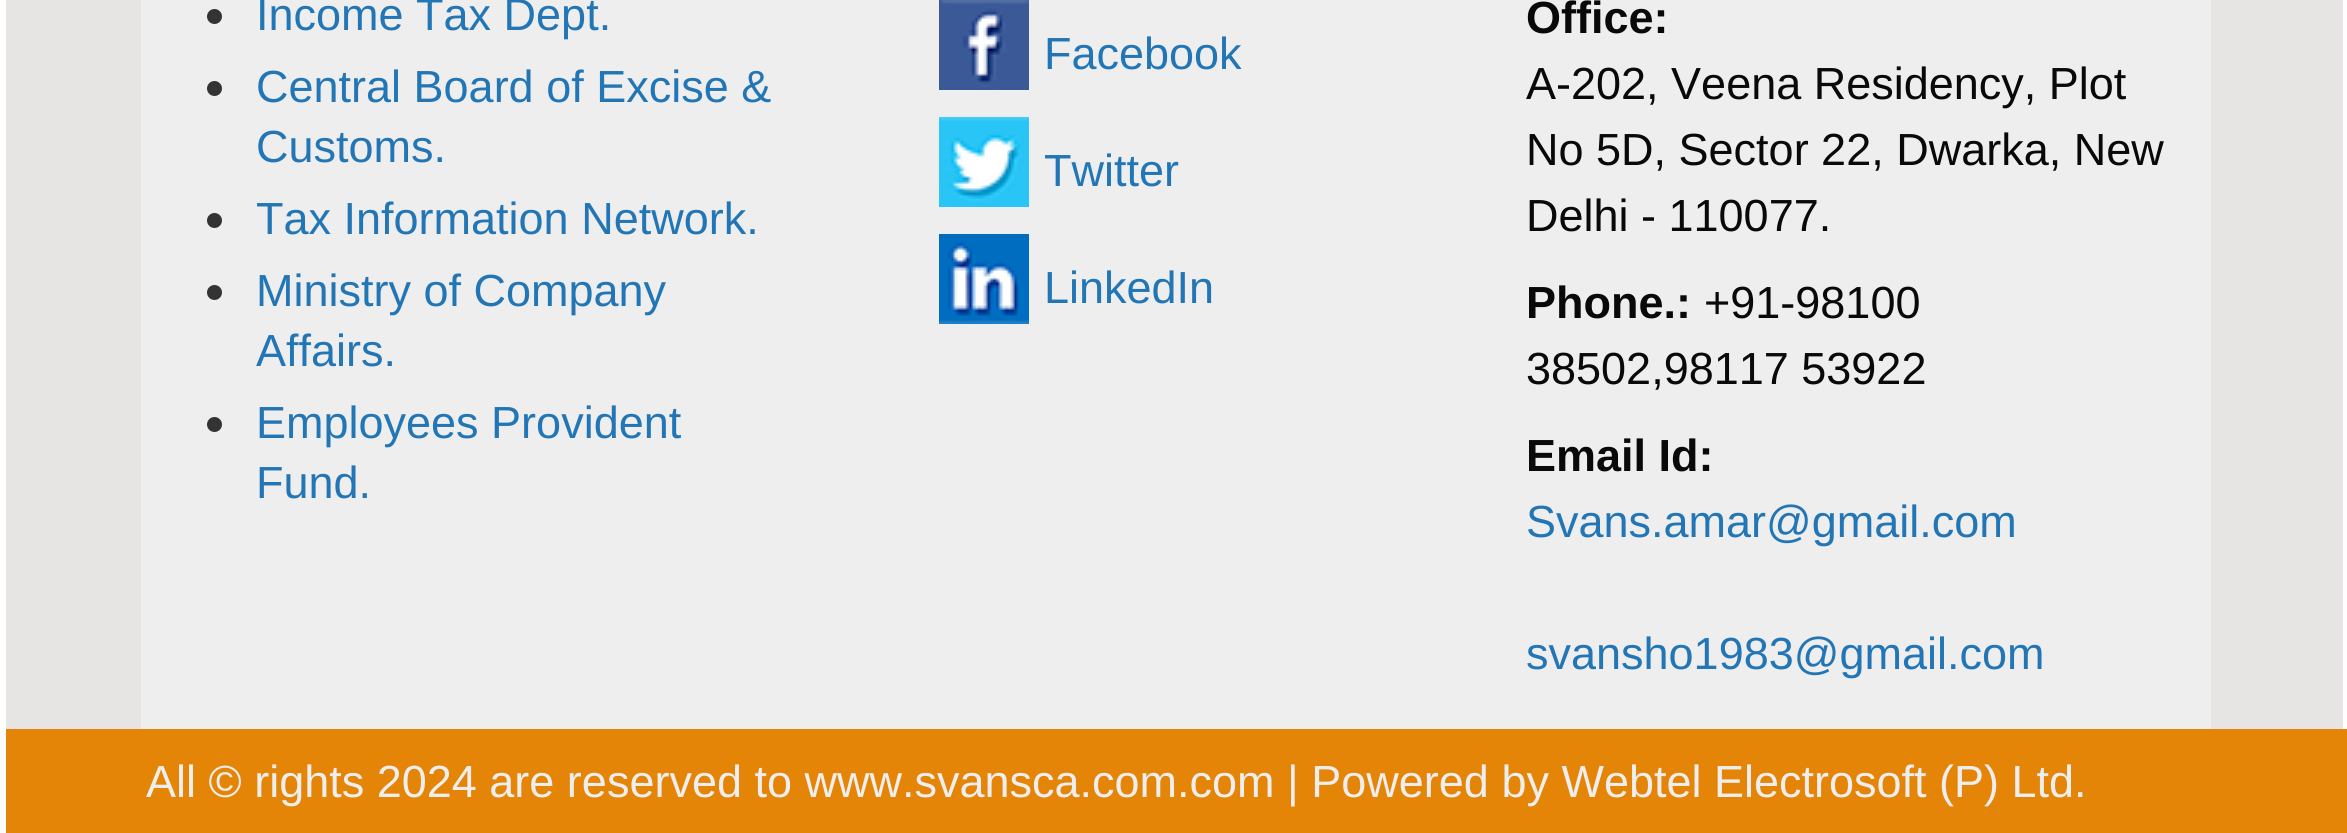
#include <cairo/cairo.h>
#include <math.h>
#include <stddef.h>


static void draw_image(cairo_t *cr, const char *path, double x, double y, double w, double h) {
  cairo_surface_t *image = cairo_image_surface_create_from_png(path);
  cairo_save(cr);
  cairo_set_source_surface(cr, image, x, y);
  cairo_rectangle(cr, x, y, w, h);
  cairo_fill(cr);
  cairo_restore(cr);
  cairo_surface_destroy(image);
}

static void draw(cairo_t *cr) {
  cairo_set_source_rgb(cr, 1, 1, 1);
  cairo_paint(cr);
  cairo_set_source_rgb(cr, 231 / 255.0, 228 / 255.0, 228 / 255.0);
  cairo_rectangle(cr, 6, 0, 2337, 729);
  cairo_fill(cr);
  cairo_set_source_rgb(cr, 238 / 255.0, 238 / 255.0, 238 / 255.0);
  cairo_rectangle(cr, 141, 0, 2070, 729);
  cairo_fill(cr);
  cairo_set_source_rgb(cr, 51 / 255.0, 51 / 255.0, 51 / 255.0);
  cairo_arc(cr, 214.5, 16.5, 7.5, 0, 2 * M_PI);
  cairo_fill(cr);
  cairo_arc(cr, 214.5, 88.5, 7.5, 0, 2 * M_PI);
  cairo_fill(cr);
  cairo_arc(cr, 214.5, 220.5, 7.5, 0, 2 * M_PI);
  cairo_fill(cr);
  cairo_arc(cr, 214.5, 292.5, 7.5, 0, 2 * M_PI);
  cairo_fill(cr);
  cairo_arc(cr, 214.5, 424.5, 7.5, 0, 2 * M_PI);
  cairo_fill(cr);
  draw_image(cr, "images/1.png", 939, 0, 90, 90);
  draw_image(cr, "images/2.png", 939, 117, 90, 90);
  draw_image(cr, "images/3.png", 939, 234, 90, 90);
  cairo_set_source_rgb(cr, 228 / 255.0, 133 / 255.0, 7 / 255.0);
  cairo_rectangle(cr, 6, 729, 2341, 104);
  cairo_fill(cr);
  cairo_select_font_face(cr, "Liberation Sans", CAIRO_FONT_SLANT_NORMAL, CAIRO_FONT_WEIGHT_NORMAL);
  cairo_set_font_size(cr, 45);
  cairo_set_source_rgb(cr, 35 / 255.0, 118 / 255.0, 182 / 255.0);
  cairo_move_to(cr, 256, 30);
  cairo_show_text(cr, "Income Tax Dept.");
  cairo_move_to(cr, 256, 102);
  cairo_show_text(cr, "Central Board of Excise &");
  cairo_move_to(cr, 256, 162);
  cairo_show_text(cr, "Customs.");
  cairo_move_to(cr, 256, 234);
  cairo_show_text(cr, "Tax Information Network.");
  cairo_move_to(cr, 256, 306);
  cairo_show_text(cr, "Ministry of Company");
  cairo_move_to(cr, 256, 366);
  cairo_show_text(cr, "Affairs.");
  cairo_move_to(cr, 256, 438);
  cairo_show_text(cr, "Employees Provident");
  cairo_move_to(cr, 256, 498);
  cairo_show_text(cr, "Fund.");
  cairo_move_to(cr, 1044, 69);
  cairo_show_text(cr, "Facebook");
  cairo_move_to(cr, 1044, 186);
  cairo_show_text(cr, "Twitter");
  cairo_move_to(cr, 1044, 303);
  cairo_show_text(cr, "LinkedIn");
  cairo_select_font_face(cr, "Liberation Sans", CAIRO_FONT_SLANT_NORMAL, CAIRO_FONT_WEIGHT_BOLD);
  cairo_set_source_rgb(cr, 10 / 255.0, 9 / 255.0, 9 / 255.0);
  cairo_move_to(cr, 1526, 33);
  cairo_show_text(cr, "Office:");
  cairo_select_font_face(cr, "Liberation Sans", CAIRO_FONT_SLANT_NORMAL, CAIRO_FONT_WEIGHT_NORMAL);
  cairo_move_to(cr, 1526, 99);
  cairo_show_text(cr, "A-202, Veena Residency, Plot");
  cairo_move_to(cr, 1526, 165);
  cairo_show_text(cr, "No 5D, Sector 22, Dwarka, New");
  cairo_move_to(cr, 1526, 231);
  cairo_show_text(cr, "Delhi - 110077.");
  cairo_select_font_face(cr, "Liberation Sans", CAIRO_FONT_SLANT_NORMAL, CAIRO_FONT_WEIGHT_BOLD);
  cairo_move_to(cr, 1526, 318);
  cairo_show_text(cr, "Phone.:");
  cairo_select_font_face(cr, "Liberation Sans", CAIRO_FONT_SLANT_NORMAL, CAIRO_FONT_WEIGHT_NORMAL);
  cairo_move_to(cr, 1704, 318);
  cairo_show_text(cr, "+91-98100");
  cairo_move_to(cr, 1526, 384);
  cairo_show_text(cr, "38502,98117 53922");
  cairo_select_font_face(cr, "Liberation Sans", CAIRO_FONT_SLANT_NORMAL, CAIRO_FONT_WEIGHT_BOLD);
  cairo_move_to(cr, 1526, 471);
  cairo_show_text(cr, "Email Id:");
  cairo_select_font_face(cr, "Liberation Sans", CAIRO_FONT_SLANT_NORMAL, CAIRO_FONT_WEIGHT_NORMAL);
  cairo_set_source_rgb(cr, 35 / 255.0, 118 / 255.0, 182 / 255.0);
  cairo_move_to(cr, 1526, 537);
  cairo_show_text(cr, "Svans.amar@gmail.com");
  cairo_move_to(cr, 1526, 669);
  cairo_show_text(cr, "svansho1983@gmail.com");
  cairo_set_source_rgb(cr, 238 / 255.0, 238 / 255.0, 238 / 255.0);
  cairo_move_to(cr, 146, 797);
  cairo_show_text(cr, "All © rights 2024 are reserved to www.svansca.com.com | Powered by Webtel Electrosoft (P) Ltd.");
}

int main(void) {
  cairo_surface_t *surface = cairo_image_surface_create(CAIRO_FORMAT_RGB24, 2347, 833);
  cairo_t *cr = cairo_create(surface);
  cairo_font_options_t *options = cairo_font_options_create();
  cairo_font_options_set_hint_metrics(options, CAIRO_HINT_METRICS_OFF);
  cairo_font_options_set_hint_style(options, CAIRO_HINT_STYLE_NONE);
  cairo_set_font_options(cr, options);
  cairo_set_miter_limit(cr, 4);
  draw(cr);
  cairo_surface_write_to_png(surface, "out.png");
  cairo_font_options_destroy(options);
  cairo_destroy(cr);
  cairo_surface_destroy(surface);
  return 0;
}
